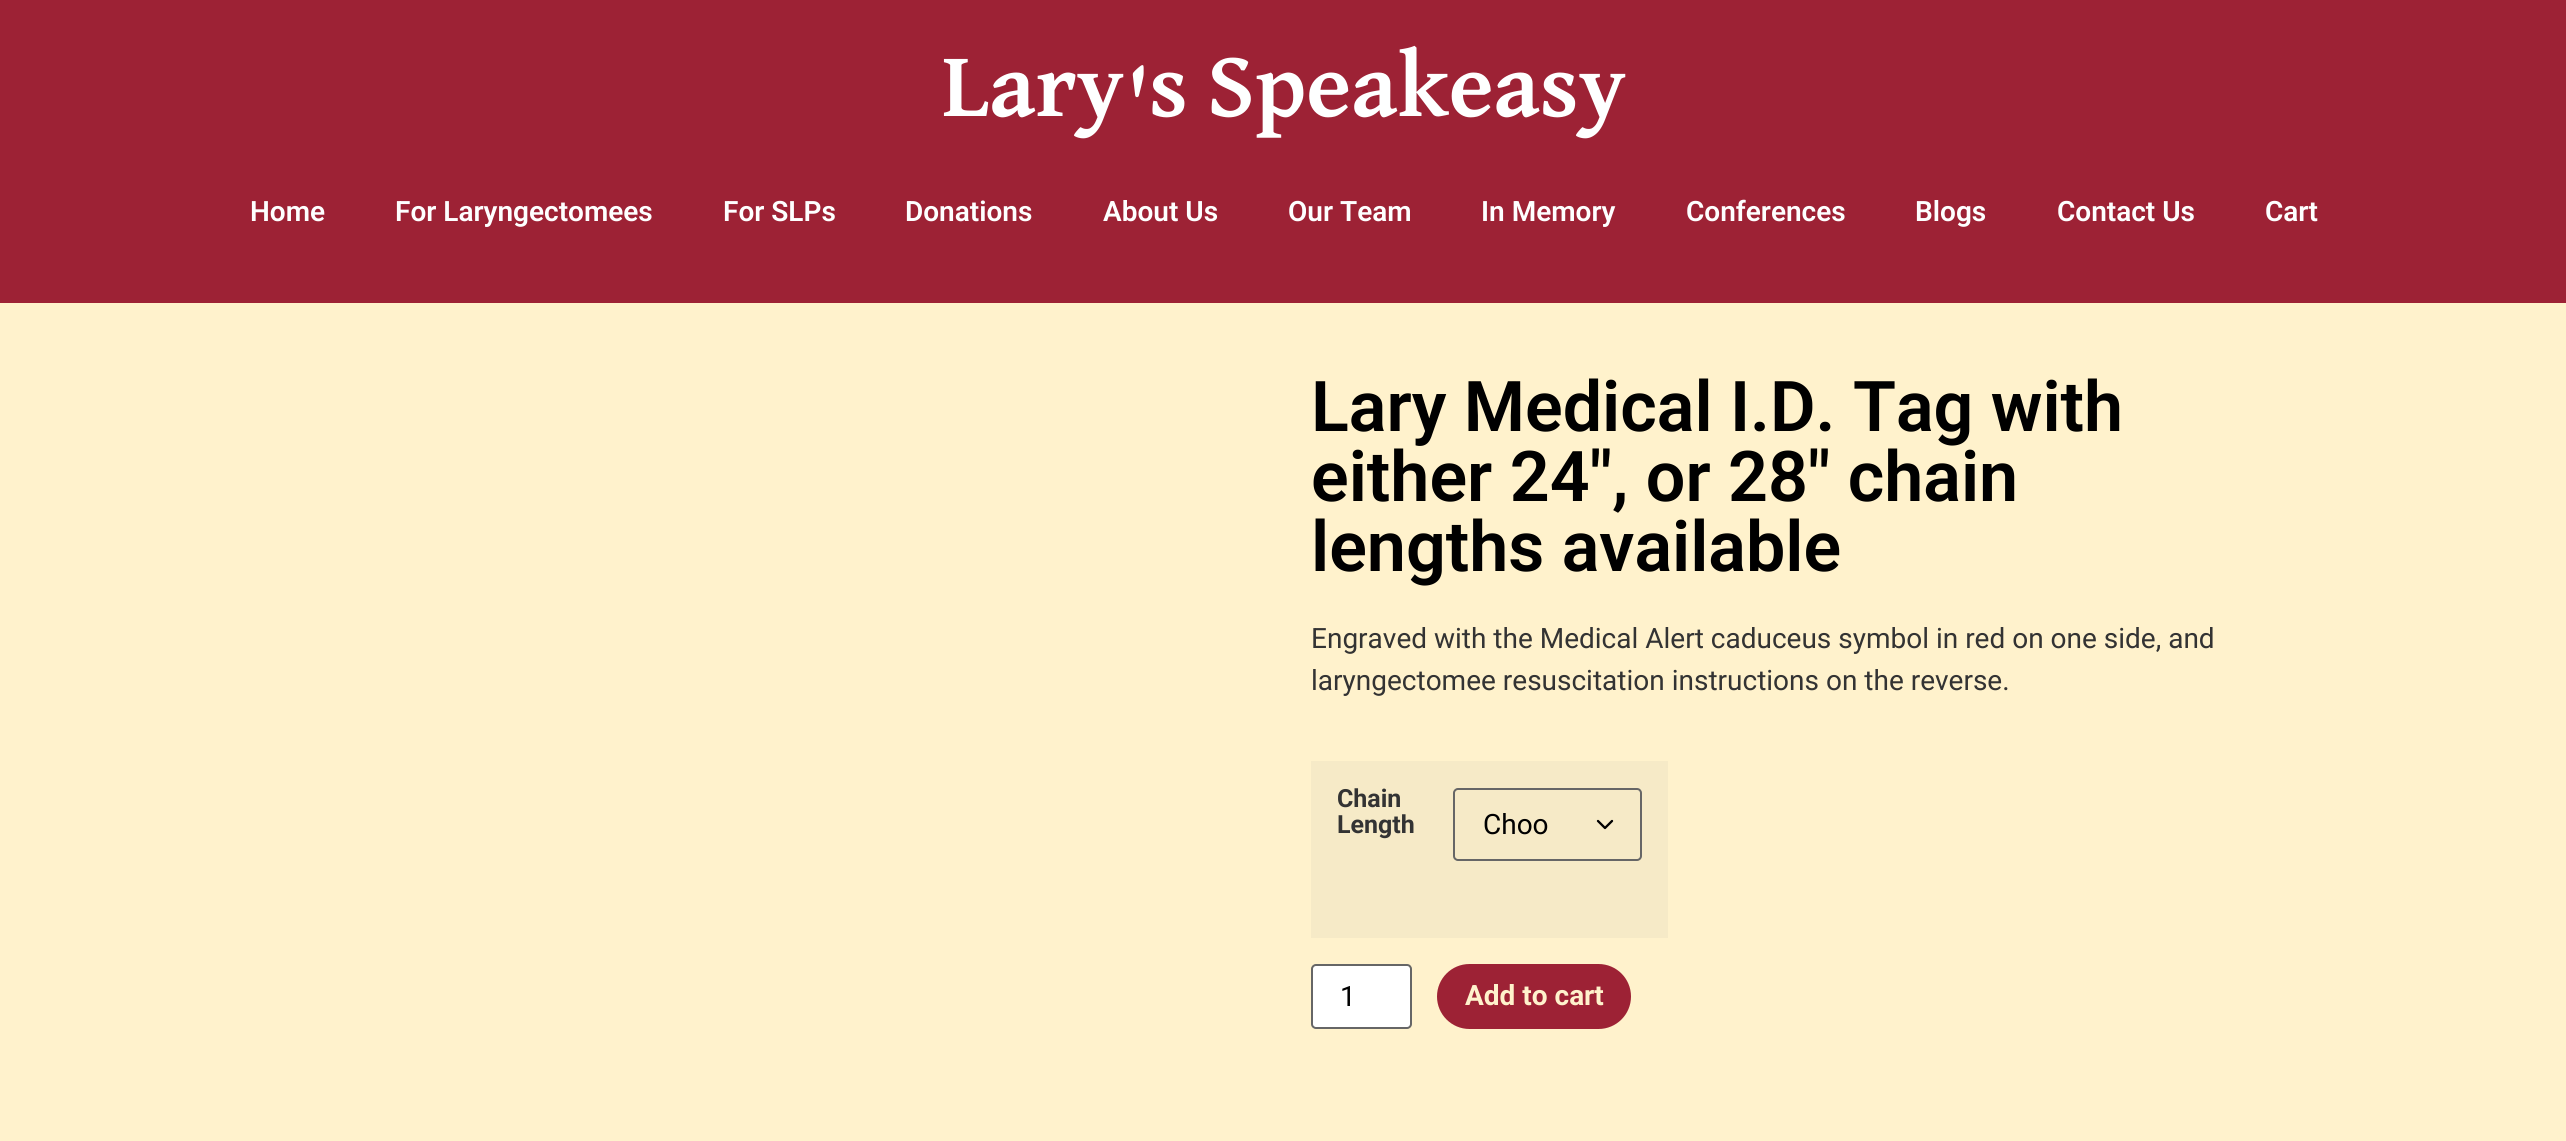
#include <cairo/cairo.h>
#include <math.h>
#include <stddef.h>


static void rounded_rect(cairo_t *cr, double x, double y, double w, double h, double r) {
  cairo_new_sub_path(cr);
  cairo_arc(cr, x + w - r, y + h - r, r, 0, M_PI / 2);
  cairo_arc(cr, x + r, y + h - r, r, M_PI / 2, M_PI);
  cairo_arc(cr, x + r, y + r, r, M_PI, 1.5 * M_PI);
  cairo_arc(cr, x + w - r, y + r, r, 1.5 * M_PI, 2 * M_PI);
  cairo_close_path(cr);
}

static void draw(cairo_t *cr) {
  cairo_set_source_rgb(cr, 1, 242 / 255.0, 204 / 255.0);
  cairo_paint(cr);
  cairo_set_source_rgb(cr, 157 / 255.0, 34 / 255.0, 53 / 255.0);
  cairo_rectangle(cr, 0, 0, 2566, 303);
  cairo_fill(cr);
  cairo_set_source_rgb(cr, 246 / 255.0, 234 / 255.0, 199 / 255.0);
  cairo_rectangle(cr, 1311, 761, 357, 177);
  cairo_fill(cr);
  cairo_new_path(cr);
  cairo_move_to(cr, 1598, 821);
  cairo_line_to(cr, 1605, 828);
  cairo_line_to(cr, 1612, 821);
  cairo_set_source_rgb(cr, 0, 0, 0);
  cairo_set_line_width(cr, 2.3);
  cairo_set_line_cap(cr, CAIRO_LINE_CAP_ROUND);
  cairo_set_line_join(cr, CAIRO_LINE_JOIN_ROUND);
  cairo_stroke(cr);
  rounded_rect(cr, 1454, 789, 187, 71, 4);
  cairo_set_source_rgb(cr, 102 / 255.0, 102 / 255.0, 102 / 255.0);
  cairo_set_line_width(cr, 2);
  cairo_set_line_cap(cr, CAIRO_LINE_CAP_BUTT);
  cairo_set_line_join(cr, CAIRO_LINE_JOIN_MITER);
  cairo_stroke(cr);
  cairo_set_source_rgb(cr, 1, 1, 1);
  rounded_rect(cr, 1312, 965, 99, 63, 4);
  cairo_fill_preserve(cr);
  cairo_set_source_rgb(cr, 102 / 255.0, 102 / 255.0, 102 / 255.0);
  cairo_stroke(cr);
  cairo_set_source_rgb(cr, 157 / 255.0, 34 / 255.0, 53 / 255.0);
  rounded_rect(cr, 1437, 964, 194, 65, 32.5);
  cairo_fill(cr);
  cairo_select_font_face(cr, "David Libre", CAIRO_FONT_SLANT_NORMAL, CAIRO_FONT_WEIGHT_BOLD);
  cairo_set_font_size(cr, 92.75);
  cairo_set_source_rgb(cr, 254 / 255.0, 1, 1);
  cairo_move_to(cr, 942, 116);
  cairo_show_text(cr, "Lary's Speakeasy");
  cairo_select_font_face(cr, "Roboto SemiBold", CAIRO_FONT_SLANT_NORMAL, CAIRO_FONT_WEIGHT_NORMAL);
  cairo_set_font_size(cr, 28);
  cairo_move_to(cr, 250, 221);
  cairo_show_text(cr, "Home");
  cairo_move_to(cr, 395, 221);
  cairo_show_text(cr, "For Laryngectomees");
  cairo_move_to(cr, 723, 221);
  cairo_show_text(cr, "For SLPs");
  cairo_move_to(cr, 905, 221);
  cairo_show_text(cr, "Donations");
  cairo_move_to(cr, 1103, 221);
  cairo_show_text(cr, "About Us");
  cairo_move_to(cr, 1288, 221);
  cairo_show_text(cr, "Our Team");
  cairo_move_to(cr, 1481, 221);
  cairo_show_text(cr, "In Memory");
  cairo_move_to(cr, 1686, 221);
  cairo_show_text(cr, "Conferences");
  cairo_move_to(cr, 1915, 221);
  cairo_show_text(cr, "Blogs");
  cairo_move_to(cr, 2057, 221);
  cairo_show_text(cr, "Contact Us");
  cairo_move_to(cr, 2265, 221);
  cairo_show_text(cr, "Cart");
  cairo_set_font_size(cr, 70);
  cairo_set_source_rgb(cr, 0, 0, 0);
  cairo_move_to(cr, 1311, 431);
  cairo_show_text(cr, "Lary Medical I.D. Tag with");
  cairo_move_to(cr, 1311, 501);
  cairo_show_text(cr, "either 24″, or 28″ chain");
  cairo_move_to(cr, 1311, 571);
  cairo_show_text(cr, "lengths available");
  cairo_select_font_face(cr, "Roboto", CAIRO_FONT_SLANT_NORMAL, CAIRO_FONT_WEIGHT_NORMAL);
  cairo_set_font_size(cr, 28);
  cairo_set_source_rgb(cr, 51 / 255.0, 51 / 255.0, 51 / 255.0);
  cairo_move_to(cr, 1311, 648);
  cairo_show_text(cr, "Engraved with the Medical Alert caduceus symbol in red on one side, and");
  cairo_move_to(cr, 1311, 690);
  cairo_show_text(cr, "laryngectomee resuscitation instructions on the reverse.");
  cairo_select_font_face(cr, "Roboto", CAIRO_FONT_SLANT_NORMAL, CAIRO_FONT_WEIGHT_BOLD);
  cairo_set_font_size(cr, 25);
  cairo_move_to(cr, 1337, 807);
  cairo_show_text(cr, "Chain");
  cairo_move_to(cr, 1337, 833);
  cairo_show_text(cr, "Length");
  cairo_select_font_face(cr, "Roboto", CAIRO_FONT_SLANT_NORMAL, CAIRO_FONT_WEIGHT_NORMAL);
  cairo_set_font_size(cr, 28);
  cairo_set_source_rgb(cr, 0, 0, 0);
  cairo_move_to(cr, 1483, 834);
  cairo_show_text(cr, "Choo");
  cairo_move_to(cr, 1340, 1006);
  cairo_show_text(cr, "1");
  cairo_select_font_face(cr, "Roboto", CAIRO_FONT_SLANT_NORMAL, CAIRO_FONT_WEIGHT_BOLD);
  cairo_set_source_rgb(cr, 1, 242 / 255.0, 204 / 255.0);
  cairo_move_to(cr, 1465, 1005);
  cairo_show_text(cr, "Add to cart");
}

int main(void) {
  cairo_surface_t *surface = cairo_image_surface_create(CAIRO_FORMAT_RGB24, 2566, 1141);
  cairo_t *cr = cairo_create(surface);
  cairo_font_options_t *options = cairo_font_options_create();
  cairo_font_options_set_hint_metrics(options, CAIRO_HINT_METRICS_OFF);
  cairo_font_options_set_hint_style(options, CAIRO_HINT_STYLE_NONE);
  cairo_set_font_options(cr, options);
  cairo_set_miter_limit(cr, 4);
  draw(cr);
  cairo_surface_write_to_png(surface, "out.png");
  cairo_font_options_destroy(options);
  cairo_destroy(cr);
  cairo_surface_destroy(surface);
  return 0;
}
